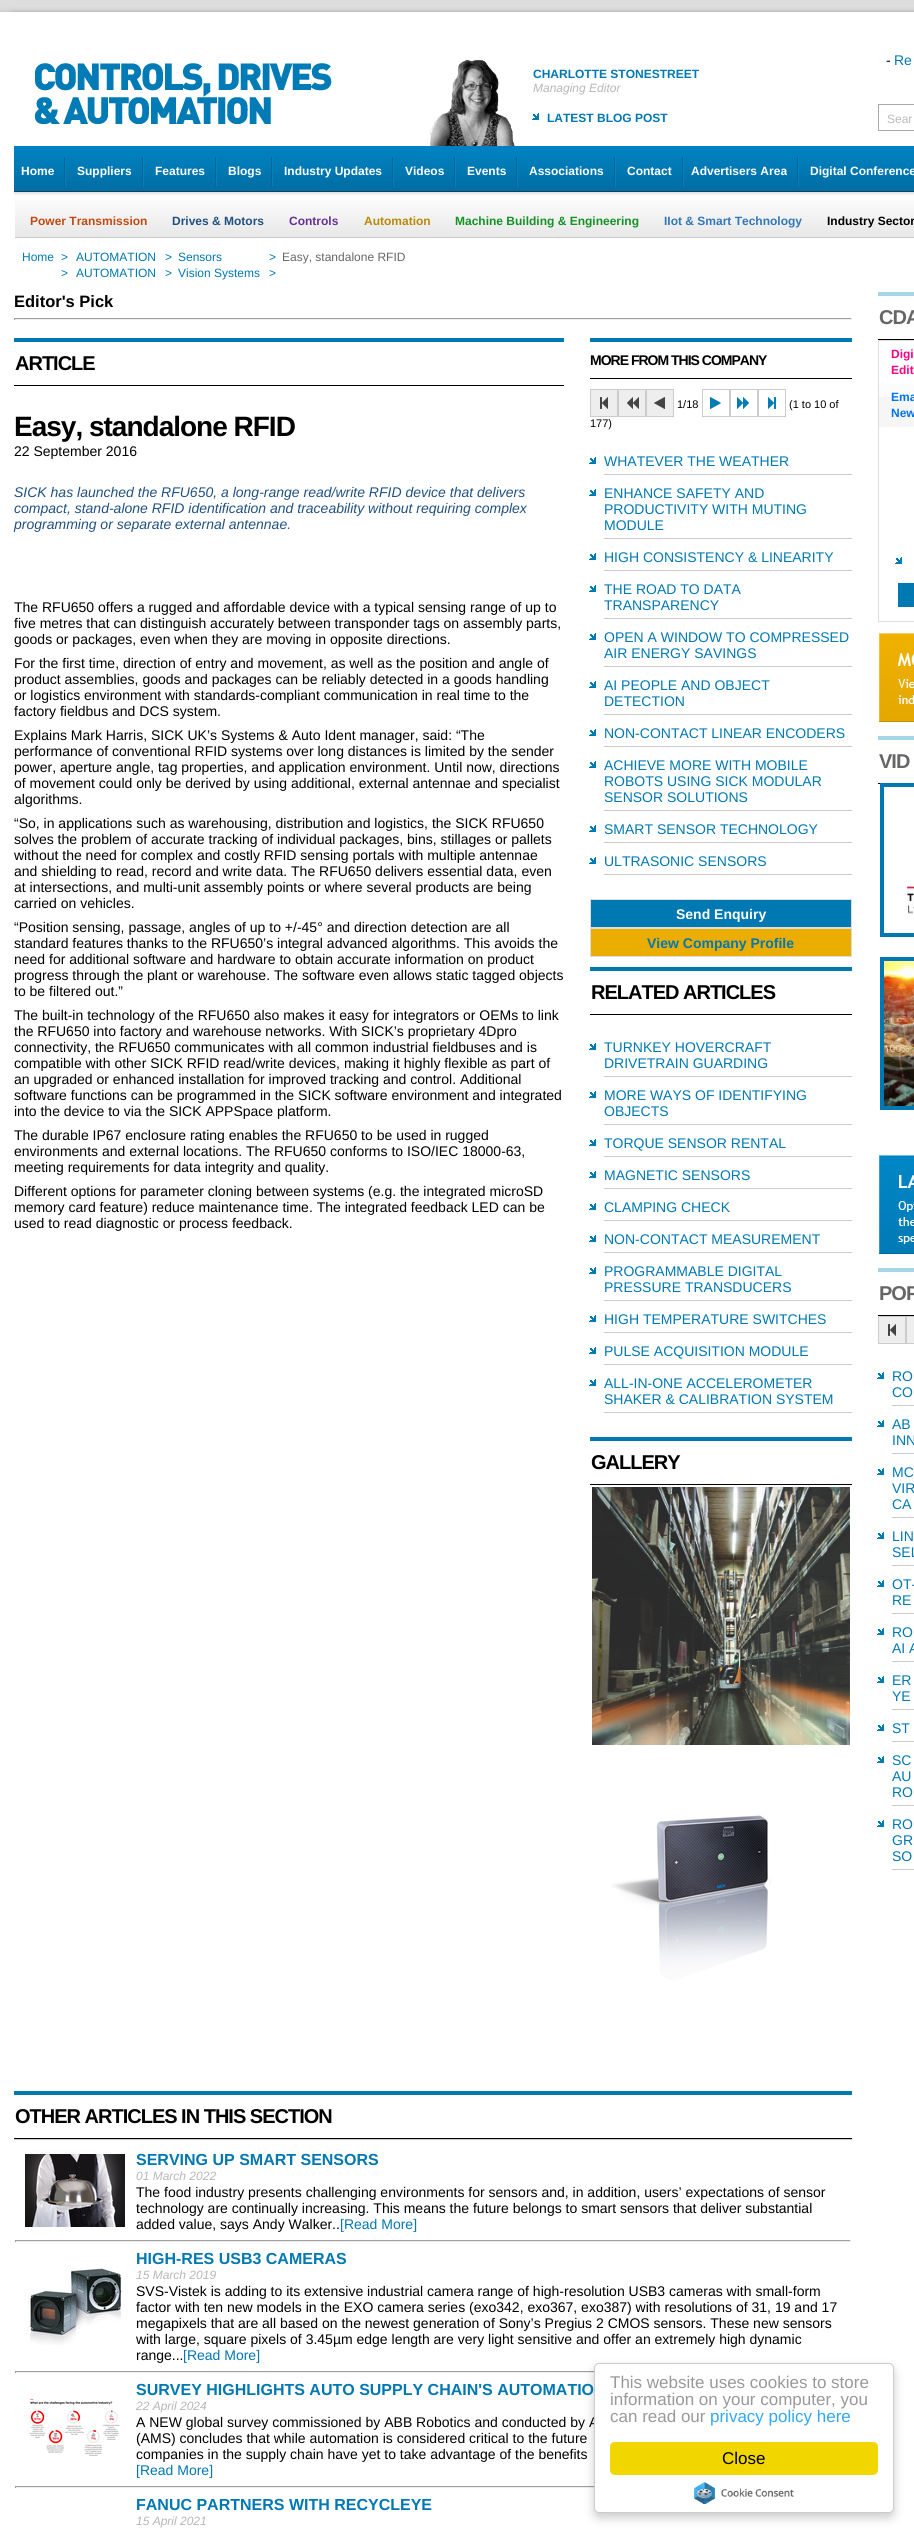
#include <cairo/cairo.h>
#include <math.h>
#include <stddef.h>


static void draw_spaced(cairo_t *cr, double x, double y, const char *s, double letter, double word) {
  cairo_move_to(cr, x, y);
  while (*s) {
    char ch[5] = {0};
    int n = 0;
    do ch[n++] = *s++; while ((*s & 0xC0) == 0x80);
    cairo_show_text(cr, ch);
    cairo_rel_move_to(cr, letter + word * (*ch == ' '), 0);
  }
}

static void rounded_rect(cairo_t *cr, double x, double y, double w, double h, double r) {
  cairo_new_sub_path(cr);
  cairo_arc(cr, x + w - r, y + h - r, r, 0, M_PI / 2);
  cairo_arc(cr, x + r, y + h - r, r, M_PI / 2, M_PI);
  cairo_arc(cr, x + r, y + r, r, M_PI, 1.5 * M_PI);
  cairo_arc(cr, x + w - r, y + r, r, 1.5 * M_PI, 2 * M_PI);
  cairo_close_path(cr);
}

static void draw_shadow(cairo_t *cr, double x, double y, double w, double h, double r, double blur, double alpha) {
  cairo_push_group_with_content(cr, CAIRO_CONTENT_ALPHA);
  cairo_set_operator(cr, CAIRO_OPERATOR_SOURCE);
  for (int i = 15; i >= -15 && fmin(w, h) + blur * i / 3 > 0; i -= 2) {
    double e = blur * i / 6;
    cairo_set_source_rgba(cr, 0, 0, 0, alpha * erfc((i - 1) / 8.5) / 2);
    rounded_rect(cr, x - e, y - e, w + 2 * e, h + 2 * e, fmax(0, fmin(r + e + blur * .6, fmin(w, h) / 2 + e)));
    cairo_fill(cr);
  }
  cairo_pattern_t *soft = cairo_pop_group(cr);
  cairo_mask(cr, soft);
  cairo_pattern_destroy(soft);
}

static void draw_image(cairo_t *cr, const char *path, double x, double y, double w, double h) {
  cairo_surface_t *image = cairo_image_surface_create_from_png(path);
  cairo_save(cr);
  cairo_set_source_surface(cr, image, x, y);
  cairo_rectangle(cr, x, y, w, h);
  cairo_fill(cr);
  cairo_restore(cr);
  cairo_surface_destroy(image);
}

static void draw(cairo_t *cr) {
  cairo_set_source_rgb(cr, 221 / 255.0, 221 / 255.0, 221 / 255.0);
  cairo_paint(cr);
  cairo_set_source_rgb(cr, 51 / 255.0, 51 / 255.0, 51 / 255.0);
  draw_shadow(cr, -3, 17, 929, 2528, 0, 4, 1);
  draw_shadow(cr, 13, 17, 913, 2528, 0, 4, 1);
  cairo_set_source_rgb(cr, 1, 1, 1);
  cairo_rectangle(cr, 0, 12, 914, 2521);
  cairo_fill(cr);
  draw_image(cr, "images/1.png", 35, 63, 297, 61);
  draw_image(cr, "images/2.png", 427, 60, 88, 86);
  draw_image(cr, "images/3.png", 532, 113, 7, 7);
  cairo_rectangle(cr, 878.5, 104.5, 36, 26);
  cairo_set_source_rgb(cr, 170 / 255.0, 170 / 255.0, 170 / 255.0);
  cairo_set_line_width(cr, 1);
  cairo_stroke(cr);
  draw_image(cr, "images/4.png", 14, 146, 900, 45);
  draw_image(cr, "images/5.png", 64, 157, 2, 30);
  draw_image(cr, "images/5.png", 142, 157, 2, 30);
  draw_image(cr, "images/5.png", 215, 157, 2, 30);
  draw_image(cr, "images/5.png", 271, 157, 2, 30);
  draw_image(cr, "images/5.png", 392, 157, 2, 30);
  draw_image(cr, "images/5.png", 454, 157, 2, 30);
  draw_image(cr, "images/5.png", 516, 157, 2, 30);
  draw_image(cr, "images/5.png", 614, 157, 2, 30);
  draw_image(cr, "images/5.png", 682, 157, 2, 30);
  draw_image(cr, "images/5.png", 797, 157, 2, 30);
  draw_image(cr, "images/6.png", 14, 191, 900, 47);
  cairo_set_source_rgb(cr, 1, 1, 1);
  cairo_rectangle(cr, 14, 201, 1, 40);
  cairo_fill(cr);
  cairo_set_source_rgb(cr, 159 / 255.0, 159 / 255.0, 159 / 255.0);
  cairo_rectangle(cr, 14, 318, 838, 1);
  cairo_fill(cr);
  cairo_set_source_rgb(cr, 238 / 255.0, 238 / 255.0, 238 / 255.0);
  cairo_rectangle(cr, 851, 318, 1, 2);
  cairo_fill(cr);
  cairo_rectangle(cr, 14, 319, 838, 1);
  cairo_fill(cr);
  cairo_set_source_rgb(cr, 159 / 255.0, 159 / 255.0, 159 / 255.0);
  cairo_rectangle(cr, 14, 318, 1, 2);
  cairo_fill(cr);
  cairo_set_source_rgb(cr, 0, 120 / 255.0, 178 / 255.0);
  cairo_rectangle(cr, 14, 338, 550, 4);
  cairo_fill(cr);
  cairo_set_source_rgb(cr, 0, 0, 0);
  cairo_rectangle(cr, 14, 385, 550, 1);
  cairo_fill(cr);
  cairo_set_source_rgb(cr, 0, 120 / 255.0, 178 / 255.0);
  cairo_rectangle(cr, 590, 338, 262, 4);
  cairo_fill(cr);
  cairo_set_source_rgb(cr, 0, 0, 0);
  cairo_rectangle(cr, 590, 378, 262, 1);
  cairo_fill(cr);
  cairo_set_source_rgb(cr, 238 / 255.0, 238 / 255.0, 238 / 255.0);
  cairo_rectangle(cr, 590.5, 389.5, 27, 27);
  cairo_fill_preserve(cr);
  cairo_set_source_rgb(cr, 204 / 255.0, 204 / 255.0, 204 / 255.0);
  cairo_stroke(cr);
  draw_image(cr, "images/7.png", 600, 397, 8, 12);
  cairo_set_source_rgb(cr, 238 / 255.0, 238 / 255.0, 238 / 255.0);
  cairo_rectangle(cr, 618.5, 389.5, 27, 27);
  cairo_fill_preserve(cr);
  cairo_set_source_rgb(cr, 204 / 255.0, 204 / 255.0, 204 / 255.0);
  cairo_stroke(cr);
  draw_image(cr, "images/8.png", 627, 397, 12, 12);
  cairo_set_source_rgb(cr, 238 / 255.0, 238 / 255.0, 238 / 255.0);
  cairo_rectangle(cr, 646.5, 389.5, 27, 27);
  cairo_fill_preserve(cr);
  cairo_set_source_rgb(cr, 204 / 255.0, 204 / 255.0, 204 / 255.0);
  cairo_stroke(cr);
  draw_image(cr, "images/9.png", 654, 397, 11, 12);
  cairo_rectangle(cr, 702.5, 389.5, 27, 27);
  cairo_stroke(cr);
  draw_image(cr, "images/10.png", 710, 397, 11, 12);
  cairo_rectangle(cr, 730.5, 389.5, 27, 27);
  cairo_stroke(cr);
  draw_image(cr, "images/11.png", 737, 397, 12, 12);
  cairo_rectangle(cr, 758.5, 389.5, 27, 27);
  cairo_stroke(cr);
  draw_image(cr, "images/12.png", 768, 397, 8, 12);
  cairo_rectangle(cr, 604, 474, 248, 1);
  cairo_fill(cr);
  draw_image(cr, "images/3.png", 589, 457, 7, 7);
  cairo_rectangle(cr, 604, 538, 248, 1);
  cairo_fill(cr);
  draw_image(cr, "images/3.png", 589, 489, 7, 7);
  cairo_rectangle(cr, 604, 570, 248, 1);
  cairo_fill(cr);
  draw_image(cr, "images/3.png", 589, 553, 7, 7);
  cairo_rectangle(cr, 604, 618, 248, 1);
  cairo_fill(cr);
  draw_image(cr, "images/3.png", 589, 585, 7, 7);
  cairo_rectangle(cr, 604, 666, 248, 1);
  cairo_fill(cr);
  draw_image(cr, "images/3.png", 589, 633, 7, 7);
  cairo_rectangle(cr, 604, 714, 248, 1);
  cairo_fill(cr);
  draw_image(cr, "images/3.png", 589, 681, 7, 7);
  cairo_rectangle(cr, 604, 746, 248, 1);
  cairo_fill(cr);
  draw_image(cr, "images/3.png", 589, 729, 7, 7);
  cairo_rectangle(cr, 604, 810, 248, 1);
  cairo_fill(cr);
  draw_image(cr, "images/3.png", 589, 761, 7, 7);
  cairo_rectangle(cr, 604, 842, 248, 1);
  cairo_fill(cr);
  draw_image(cr, "images/3.png", 589, 825, 7, 7);
  cairo_rectangle(cr, 604, 874, 248, 1);
  cairo_fill(cr);
  draw_image(cr, "images/3.png", 589, 857, 7, 7);
  cairo_set_source_rgb(cr, 0, 120 / 255.0, 178 / 255.0);
  cairo_rectangle(cr, 590.5, 899.5, 261, 28);
  cairo_fill_preserve(cr);
  cairo_set_source_rgb(cr, 221 / 255.0, 221 / 255.0, 221 / 255.0);
  cairo_stroke(cr);
  cairo_rectangle(cr, 590.5, 928.5, 261, 28);
  cairo_stroke(cr);
  cairo_set_source_rgb(cr, 234 / 255.0, 173 / 255.0, 0);
  cairo_rectangle(cr, 591, 929, 260, 27);
  cairo_fill(cr);
  cairo_set_source_rgb(cr, 0, 120 / 255.0, 178 / 255.0);
  cairo_rectangle(cr, 590, 967, 262, 4);
  cairo_fill(cr);
  cairo_set_source_rgb(cr, 0, 0, 0);
  cairo_rectangle(cr, 590, 1014, 262, 1);
  cairo_fill(cr);
  cairo_set_source_rgb(cr, 204 / 255.0, 204 / 255.0, 204 / 255.0);
  cairo_rectangle(cr, 604, 1076, 248, 1);
  cairo_fill(cr);
  draw_image(cr, "images/3.png", 589, 1043, 7, 7);
  cairo_rectangle(cr, 604, 1124, 248, 1);
  cairo_fill(cr);
  draw_image(cr, "images/3.png", 589, 1091, 7, 7);
  cairo_rectangle(cr, 604, 1156, 248, 1);
  cairo_fill(cr);
  draw_image(cr, "images/3.png", 589, 1139, 7, 7);
  cairo_rectangle(cr, 604, 1188, 248, 1);
  cairo_fill(cr);
  draw_image(cr, "images/3.png", 589, 1171, 7, 7);
  cairo_rectangle(cr, 604, 1220, 248, 1);
  cairo_fill(cr);
  draw_image(cr, "images/3.png", 589, 1203, 7, 7);
  cairo_rectangle(cr, 604, 1252, 248, 1);
  cairo_fill(cr);
  draw_image(cr, "images/3.png", 589, 1235, 7, 7);
  cairo_rectangle(cr, 604, 1300, 248, 1);
  cairo_fill(cr);
  draw_image(cr, "images/3.png", 589, 1267, 7, 7);
  cairo_rectangle(cr, 604, 1332, 248, 1);
  cairo_fill(cr);
  draw_image(cr, "images/3.png", 589, 1315, 7, 7);
  cairo_rectangle(cr, 604, 1364, 248, 1);
  cairo_fill(cr);
  draw_image(cr, "images/3.png", 589, 1347, 7, 7);
  cairo_rectangle(cr, 604, 1412, 248, 1);
  cairo_fill(cr);
  draw_image(cr, "images/3.png", 589, 1379, 7, 7);
  cairo_set_source_rgb(cr, 0, 120 / 255.0, 178 / 255.0);
  cairo_rectangle(cr, 590, 1437, 262, 4);
  cairo_fill(cr);
  cairo_set_source_rgb(cr, 0, 0, 0);
  cairo_rectangle(cr, 590, 1484, 262, 1);
  cairo_fill(cr);
  draw_image(cr, "images/13.png", 592, 1487, 258, 258);
  draw_image(cr, "images/14.png", 611, 1815, 161, 165);
  cairo_set_source_rgb(cr, 0, 120 / 255.0, 178 / 255.0);
  cairo_rectangle(cr, 14, 2091, 838, 4);
  cairo_fill(cr);
  cairo_set_source_rgb(cr, 0, 0, 0);
  cairo_rectangle(cr, 14, 2138, 838, 1);
  cairo_fill(cr);
  cairo_set_source_rgb(cr, 204 / 255.0, 204 / 255.0, 204 / 255.0);
  cairo_rectangle(cr, 14, 2139, 838, 1);
  cairo_fill(cr);
  draw_image(cr, "images/15.png", 25, 2154, 100, 73);
  cairo_set_source_rgb(cr, 159 / 255.0, 159 / 255.0, 159 / 255.0);
  cairo_rectangle(cr, 15, 2240, 836, 1);
  cairo_fill(cr);
  cairo_set_source_rgb(cr, 238 / 255.0, 238 / 255.0, 238 / 255.0);
  cairo_rectangle(cr, 850, 2240, 1, 2);
  cairo_fill(cr);
  cairo_rectangle(cr, 15, 2241, 836, 1);
  cairo_fill(cr);
  cairo_set_source_rgb(cr, 159 / 255.0, 159 / 255.0, 159 / 255.0);
  cairo_rectangle(cr, 15, 2240, 1, 2);
  cairo_fill(cr);
  draw_image(cr, "images/16.png", 25, 2265, 98, 80);
  cairo_rectangle(cr, 15, 2371, 579, 1);
  cairo_fill(cr);
  cairo_set_source_rgb(cr, 238 / 255.0, 238 / 255.0, 238 / 255.0);
  cairo_rectangle(cr, 15, 2372, 579, 1);
  cairo_fill(cr);
  cairo_set_source_rgb(cr, 159 / 255.0, 159 / 255.0, 159 / 255.0);
  cairo_rectangle(cr, 15, 2371, 1, 2);
  cairo_fill(cr);
  draw_image(cr, "images/17.png", 28, 2398, 92, 58);
  cairo_rectangle(cr, 15, 2486, 579, 1);
  cairo_fill(cr);
  cairo_set_source_rgb(cr, 238 / 255.0, 238 / 255.0, 238 / 255.0);
  cairo_rectangle(cr, 15, 2487, 579, 1);
  cairo_fill(cr);
  cairo_set_source_rgb(cr, 159 / 255.0, 159 / 255.0, 159 / 255.0);
  cairo_rectangle(cr, 15, 2486, 1, 2);
  cairo_fill(cr);
  cairo_set_source_rgb(cr, 165 / 255.0, 214 / 255.0, 229 / 255.0);
  cairo_rectangle(cr, 878, 292, 36, 4);
  cairo_fill(cr);
  cairo_set_source_rgb(cr, 0, 0, 0);
  cairo_rectangle(cr, 878, 339, 36, 1);
  cairo_fill(cr);
  cairo_rectangle(cr, 878.5, 340.5, 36, 281);
  cairo_set_source_rgb(cr, 221 / 255.0, 221 / 255.0, 221 / 255.0);
  cairo_stroke(cr);
  cairo_set_source_rgb(cr, 246 / 255.0, 246 / 255.0, 246 / 255.0);
  cairo_rectangle(cr, 879, 397, 35, 30);
  cairo_fill(cr);
  cairo_set_source_rgb(cr, 252 / 255.0, 252 / 255.0, 252 / 255.0);
  cairo_rectangle(cr, 879, 384, 35, 13);
  cairo_fill(cr);
  draw_image(cr, "images/3.png", 895, 557, 7, 7);
  cairo_set_source_rgb(cr, 0, 120 / 255.0, 178 / 255.0);
  cairo_rectangle(cr, 898, 583, 16, 24);
  cairo_fill(cr);
  draw_image(cr, "images/18.png", 878, 632, 36, 91);
  cairo_set_source_rgb(cr, 165 / 255.0, 214 / 255.0, 229 / 255.0);
  cairo_rectangle(cr, 878, 736, 36, 4);
  cairo_fill(cr);
  cairo_set_source_rgb(cr, 0, 0, 0);
  cairo_rectangle(cr, 878, 783, 2, 1);
  cairo_fill(cr);
  cairo_rectangle(cr, 882, 785, 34, 150);
  cairo_set_source_rgb(cr, 0, 120 / 255.0, 178 / 255.0);
  cairo_set_line_width(cr, 4);
  cairo_stroke(cr);
  draw_image(cr, "images/19.png", 906, 886, 8, 28);
  cairo_rectangle(cr, 882, 959, 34, 149);
  cairo_stroke(cr);
  draw_image(cr, "images/20.png", 884, 961, 30, 145);
  draw_image(cr, "images/21.png", 878, 1154, 36, 101);
  cairo_set_source_rgb(cr, 165 / 255.0, 214 / 255.0, 229 / 255.0);
  cairo_rectangle(cr, 878, 1268, 36, 4);
  cairo_fill(cr);
  cairo_set_source_rgb(cr, 0, 0, 0);
  cairo_rectangle(cr, 878, 1315, 36, 1);
  cairo_fill(cr);
  cairo_set_source_rgb(cr, 238 / 255.0, 238 / 255.0, 238 / 255.0);
  cairo_rectangle(cr, 878.5, 1316.5, 27, 27);
  cairo_fill_preserve(cr);
  cairo_set_source_rgb(cr, 204 / 255.0, 204 / 255.0, 204 / 255.0);
  cairo_set_line_width(cr, 1);
  cairo_stroke(cr);
  draw_image(cr, "images/7.png", 888, 1324, 8, 12);
  cairo_set_source_rgb(cr, 238 / 255.0, 238 / 255.0, 238 / 255.0);
  cairo_rectangle(cr, 906.5, 1316.5, 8, 27);
  cairo_fill_preserve(cr);
  cairo_set_source_rgb(cr, 204 / 255.0, 204 / 255.0, 204 / 255.0);
  cairo_stroke(cr);
  cairo_rectangle(cr, 892, 1405, 22, 1);
  cairo_fill(cr);
  draw_image(cr, "images/3.png", 877, 1372, 7, 7);
  cairo_rectangle(cr, 892, 1453, 22, 1);
  cairo_fill(cr);
  draw_image(cr, "images/3.png", 877, 1420, 7, 7);
  cairo_rectangle(cr, 892, 1517, 22, 1);
  cairo_fill(cr);
  draw_image(cr, "images/3.png", 877, 1468, 7, 7);
  cairo_rectangle(cr, 892, 1565, 22, 1);
  cairo_fill(cr);
  draw_image(cr, "images/3.png", 877, 1532, 7, 7);
  cairo_rectangle(cr, 892, 1613, 22, 1);
  cairo_fill(cr);
  draw_image(cr, "images/3.png", 877, 1580, 7, 7);
  cairo_rectangle(cr, 892, 1661, 22, 1);
  cairo_fill(cr);
  draw_image(cr, "images/3.png", 877, 1628, 7, 7);
  cairo_rectangle(cr, 892, 1709, 22, 1);
  cairo_fill(cr);
  draw_image(cr, "images/3.png", 877, 1676, 7, 7);
  cairo_rectangle(cr, 892, 1741, 22, 1);
  cairo_fill(cr);
  draw_image(cr, "images/3.png", 877, 1724, 7, 7);
  cairo_rectangle(cr, 892, 1805, 22, 1);
  cairo_fill(cr);
  draw_image(cr, "images/3.png", 877, 1756, 7, 7);
  cairo_rectangle(cr, 892, 1869, 22, 1);
  cairo_fill(cr);
  draw_image(cr, "images/3.png", 877, 1820, 7, 7);
  cairo_set_source_rgb(cr, 0, 0, 0);
  draw_shadow(cr, 594, 2368, 300, 150, 5, 5, 0.2);
  cairo_select_font_face(cr, "Liberation Sans", CAIRO_FONT_SLANT_NORMAL, CAIRO_FONT_WEIGHT_BOLD);
  cairo_set_font_size(cr, 12);
  cairo_set_source_rgb(cr, 0, 120 / 255.0, 178 / 255.0);
  cairo_move_to(cr, 533, 78);
  cairo_show_text(cr, "CHARLOTTE STONESTREET");
  cairo_select_font_face(cr, "Liberation Sans", CAIRO_FONT_SLANT_ITALIC, CAIRO_FONT_WEIGHT_NORMAL);
  cairo_set_source_rgb(cr, 181 / 255.0, 183 / 255.0, 182 / 255.0);
  cairo_move_to(cr, 533, 92);
  cairo_show_text(cr, "Managing Editor");
  cairo_select_font_face(cr, "Liberation Sans", CAIRO_FONT_SLANT_NORMAL, CAIRO_FONT_WEIGHT_BOLD);
  cairo_set_source_rgb(cr, 0, 120 / 255.0, 178 / 255.0);
  cairo_move_to(cr, 547, 122);
  cairo_show_text(cr, "LATEST BLOG POST");
  cairo_select_font_face(cr, "Liberation Sans", CAIRO_FONT_SLANT_NORMAL, CAIRO_FONT_WEIGHT_NORMAL);
  cairo_set_font_size(cr, 14);
  cairo_set_source_rgb(cr, 0, 0, 0);
  cairo_move_to(cr, 886, 65);
  cairo_show_text(cr, "-");
  cairo_set_source_rgb(cr, 0, 120 / 255.0, 178 / 255.0);
  cairo_move_to(cr, 894, 65);
  cairo_show_text(cr, "Re");
  cairo_set_font_size(cr, 12);
  cairo_set_source_rgb(cr, 187 / 255.0, 187 / 255.0, 187 / 255.0);
  cairo_move_to(cr, 887, 123);
  cairo_show_text(cr, "Sear");
  cairo_select_font_face(cr, "Liberation Sans", CAIRO_FONT_SLANT_NORMAL, CAIRO_FONT_WEIGHT_BOLD);
  cairo_set_source_rgb(cr, 1, 1, 1);
  cairo_move_to(cr, 21, 175);
  cairo_show_text(cr, "Home");
  cairo_move_to(cr, 77, 175);
  cairo_show_text(cr, "Suppliers");
  cairo_move_to(cr, 155, 175);
  cairo_show_text(cr, "Features");
  cairo_move_to(cr, 228, 175);
  cairo_show_text(cr, "Blogs");
  cairo_move_to(cr, 284, 175);
  cairo_show_text(cr, "Industry Updates");
  cairo_move_to(cr, 405, 175);
  cairo_show_text(cr, "Videos");
  cairo_move_to(cr, 467, 175);
  cairo_show_text(cr, "Events");
  cairo_move_to(cr, 529, 175);
  cairo_show_text(cr, "Associations");
  cairo_move_to(cr, 627, 175);
  cairo_show_text(cr, "Contact");
  cairo_move_to(cr, 691, 175);
  cairo_show_text(cr, "Advertisers Area");
  cairo_move_to(cr, 810, 175);
  cairo_show_text(cr, "Digital Conference");
  cairo_set_source_rgb(cr, 194 / 255.0, 74 / 255.0, 14 / 255.0);
  cairo_move_to(cr, 30, 225);
  cairo_show_text(cr, "Power Transmission");
  cairo_set_source_rgb(cr, 33 / 255.0, 81 / 255.0, 129 / 255.0);
  cairo_move_to(cr, 172, 225);
  cairo_show_text(cr, "Drives & Motors");
  cairo_set_source_rgb(cr, 102 / 255.0, 47 / 255.0, 149 / 255.0);
  cairo_move_to(cr, 289, 225);
  cairo_show_text(cr, "Controls");
  cairo_set_source_rgb(cr, 185 / 255.0, 137 / 255.0, 9 / 255.0);
  cairo_move_to(cr, 364, 225);
  cairo_show_text(cr, "Automation");
  cairo_set_source_rgb(cr, 20 / 255.0, 146 / 255.0, 38 / 255.0);
  cairo_move_to(cr, 455, 225);
  cairo_show_text(cr, "Machine Building & Engineering");
  cairo_set_source_rgb(cr, 50 / 255.0, 119 / 255.0, 184 / 255.0);
  cairo_move_to(cr, 664, 225);
  cairo_show_text(cr, "IIot & Smart Technology");
  cairo_set_source_rgb(cr, 0, 0, 0);
  cairo_move_to(cr, 827, 225);
  cairo_show_text(cr, "Industry Sector");
  cairo_select_font_face(cr, "Liberation Sans", CAIRO_FONT_SLANT_NORMAL, CAIRO_FONT_WEIGHT_NORMAL);
  cairo_set_source_rgb(cr, 0, 120 / 255.0, 178 / 255.0);
  cairo_move_to(cr, 22, 261);
  cairo_show_text(cr, "Home");
  cairo_move_to(cr, 61, 261);
  cairo_show_text(cr, ">");
  cairo_move_to(cr, 76, 261);
  cairo_show_text(cr, "AUTOMATION");
  cairo_move_to(cr, 165, 261);
  cairo_show_text(cr, ">");
  cairo_move_to(cr, 178, 261);
  cairo_show_text(cr, "Sensors");
  cairo_move_to(cr, 269, 261);
  cairo_show_text(cr, ">");
  cairo_set_source_rgb(cr, 102 / 255.0, 102 / 255.0, 102 / 255.0);
  cairo_move_to(cr, 282, 261);
  cairo_show_text(cr, "Easy, standalone RFID");
  cairo_set_source_rgb(cr, 0, 120 / 255.0, 178 / 255.0);
  cairo_move_to(cr, 61, 277);
  cairo_show_text(cr, ">");
  cairo_move_to(cr, 76, 277);
  cairo_show_text(cr, "AUTOMATION");
  cairo_move_to(cr, 165, 277);
  cairo_show_text(cr, ">");
  cairo_move_to(cr, 178, 277);
  cairo_show_text(cr, "Vision Systems");
  cairo_move_to(cr, 269, 277);
  cairo_show_text(cr, ">");
  cairo_select_font_face(cr, "Liberation Sans", CAIRO_FONT_SLANT_NORMAL, CAIRO_FONT_WEIGHT_BOLD);
  cairo_set_font_size(cr, 16.5);
  cairo_set_source_rgb(cr, 0, 0, 0);
  cairo_move_to(cr, 14, 307);
  cairo_show_text(cr, "Editor's Pick");
  cairo_set_font_size(cr, 20);
  draw_spaced(cr, 15, 370, "ARTICLE", -1, 0);
  cairo_set_font_size(cr, 28);
  draw_spaced(cr, 14, 436, "Easy, standalone RFID", -1, 0);
  cairo_select_font_face(cr, "Liberation Sans", CAIRO_FONT_SLANT_NORMAL, CAIRO_FONT_WEIGHT_NORMAL);
  cairo_set_font_size(cr, 14);
  cairo_move_to(cr, 14, 456);
  cairo_show_text(cr, "22 September 2016");
  cairo_select_font_face(cr, "Liberation Sans", CAIRO_FONT_SLANT_ITALIC, CAIRO_FONT_WEIGHT_NORMAL);
  cairo_set_source_rgb(cr, 33 / 255.0, 81 / 255.0, 129 / 255.0);
  cairo_move_to(cr, 14, 497);
  cairo_show_text(cr, "SICK has launched the RFU650, a long-range read/write RFID device that delivers");
  cairo_move_to(cr, 14, 513);
  cairo_show_text(cr, "compact, stand-alone RFID identification and traceability without requiring complex");
  cairo_move_to(cr, 14, 529);
  cairo_show_text(cr, "programming or separate external antennae.");
  cairo_select_font_face(cr, "Liberation Sans", CAIRO_FONT_SLANT_NORMAL, CAIRO_FONT_WEIGHT_NORMAL);
  cairo_set_source_rgb(cr, 0, 0, 0);
  cairo_move_to(cr, 14, 612);
  cairo_show_text(cr, "The RFU650 offers a rugged and affordable device with a typical sensing range of up to");
  cairo_move_to(cr, 14, 628);
  cairo_show_text(cr, "five metres that can distinguish accurately between transponder tags on assembly parts,");
  cairo_move_to(cr, 14, 644);
  cairo_show_text(cr, "goods or packages, even when they are moving in opposite directions.");
  cairo_move_to(cr, 14, 668);
  cairo_show_text(cr, "For the first time, direction of entry and movement, as well as the position and angle of");
  cairo_move_to(cr, 14, 684);
  cairo_show_text(cr, "product assemblies, goods and packages can be reliably detected in a goods handling");
  cairo_move_to(cr, 14, 700);
  cairo_show_text(cr, "or logistics environment with standards-compliant communication in real time to the");
  cairo_move_to(cr, 14, 716);
  cairo_show_text(cr, "factory fieldbus and DCS system.");
  cairo_move_to(cr, 14, 740);
  cairo_show_text(cr, "Explains Mark Harris, SICK UK’s Systems & Auto Ident manager, said: “The");
  cairo_move_to(cr, 14, 756);
  cairo_show_text(cr, "performance of conventional RFID systems over long distances is limited by the sender");
  cairo_move_to(cr, 14, 772);
  cairo_show_text(cr, "power, aperture angle, tag properties, and application environment. Until now, directions");
  cairo_move_to(cr, 14, 788);
  cairo_show_text(cr, "of movement could only be derived by using additional, external antennae and specialist");
  cairo_move_to(cr, 14, 804);
  cairo_show_text(cr, "algorithms.");
  cairo_move_to(cr, 14, 828);
  cairo_show_text(cr, "“So, in applications such as warehousing, distribution and logistics, the SICK RFU650");
  cairo_move_to(cr, 14, 844);
  cairo_show_text(cr, "solves the problem of accurate tracking of individual packages, bins, stillages or pallets");
  cairo_move_to(cr, 14, 860);
  cairo_show_text(cr, "without the need for complex and costly RFID sensing portals with multiple antennae");
  cairo_move_to(cr, 14, 876);
  cairo_show_text(cr, "and shielding to read, record and write data. The RFU650 delivers essential data, even");
  cairo_move_to(cr, 14, 892);
  cairo_show_text(cr, "at intersections, and multi-unit assembly points or where several products are being");
  cairo_move_to(cr, 14, 908);
  cairo_show_text(cr, "carried on vehicles.");
  cairo_move_to(cr, 14, 932);
  cairo_show_text(cr, "“Position sensing, passage, angles of up to +/-45° and direction detection are all");
  cairo_move_to(cr, 14, 948);
  cairo_show_text(cr, "standard features thanks to the RFU650’s integral advanced algorithms. This avoids the");
  cairo_move_to(cr, 14, 964);
  cairo_show_text(cr, "need for additional software and hardware to obtain accurate information on product");
  cairo_move_to(cr, 14, 980);
  cairo_show_text(cr, "progress through the plant or warehouse. The software even allows static tagged objects");
  cairo_move_to(cr, 14, 996);
  cairo_show_text(cr, "to be filtered out.”");
  cairo_move_to(cr, 14, 1020);
  cairo_show_text(cr, "The built-in technology of the RFU650 also makes it easy for integrators or OEMs to link");
  cairo_move_to(cr, 14, 1036);
  cairo_show_text(cr, "the RFU650 into factory and warehouse networks. With SICK’s proprietary 4Dpro");
  cairo_move_to(cr, 14, 1052);
  cairo_show_text(cr, "connectivity, the RFU650 communicates with all common industrial fieldbuses and is");
  cairo_move_to(cr, 14, 1068);
  cairo_show_text(cr, "compatible with other SICK RFID read/write devices, making it highly flexible as part of");
  cairo_move_to(cr, 14, 1084);
  cairo_show_text(cr, "an upgraded or enhanced installation for improved tracking and control. Additional");
  cairo_move_to(cr, 14, 1100);
  cairo_show_text(cr, "software functions can be programmed in the SICK software environment and integrated");
  cairo_move_to(cr, 14, 1116);
  cairo_show_text(cr, "into the device to via the SICK APPSpace platform.");
  cairo_move_to(cr, 14, 1140);
  cairo_show_text(cr, "The durable IP67 enclosure rating enables the RFU650 to be used in rugged");
  cairo_move_to(cr, 14, 1156);
  cairo_show_text(cr, "environments and external locations. The RFU650 conforms to ISO/IEC 18000-63,");
  cairo_move_to(cr, 14, 1172);
  cairo_show_text(cr, "meeting requirements for data integrity and quality.");
  cairo_move_to(cr, 14, 1196);
  cairo_show_text(cr, "Different options for parameter cloning between systems (e.g. the integrated microSD");
  cairo_move_to(cr, 14, 1212);
  cairo_show_text(cr, "memory card feature) reduce maintenance time. The integrated feedback LED can be");
  cairo_move_to(cr, 14, 1228);
  cairo_show_text(cr, "used to read diagnostic or process feedback.");
  cairo_select_font_face(cr, "Liberation Sans", CAIRO_FONT_SLANT_NORMAL, CAIRO_FONT_WEIGHT_BOLD);
  draw_spaced(cr, 590, 365, "MORE FROM THIS COMPANY", -1, 0);
  cairo_select_font_face(cr, "Liberation Sans", CAIRO_FONT_SLANT_NORMAL, CAIRO_FONT_WEIGHT_NORMAL);
  cairo_set_font_size(cr, 11);
  cairo_move_to(cr, 677, 408);
  cairo_show_text(cr, "1/18");
  cairo_move_to(cr, 789, 408);
  cairo_show_text(cr, "(1 to 10 of");
  cairo_move_to(cr, 590, 427);
  cairo_show_text(cr, "177)");
  cairo_set_font_size(cr, 14);
  cairo_set_source_rgb(cr, 0, 120 / 255.0, 178 / 255.0);
  cairo_move_to(cr, 604, 466);
  cairo_show_text(cr, "WHATEVER THE WEATHER");
  cairo_move_to(cr, 604, 498);
  cairo_show_text(cr, "ENHANCE SAFETY AND");
  cairo_move_to(cr, 604, 514);
  cairo_show_text(cr, "PRODUCTIVITY WITH MUTING");
  cairo_move_to(cr, 604, 530);
  cairo_show_text(cr, "MODULE");
  cairo_move_to(cr, 604, 562);
  cairo_show_text(cr, "HIGH CONSISTENCY & LINEARITY");
  cairo_move_to(cr, 604, 594);
  cairo_show_text(cr, "THE ROAD TO DATA");
  cairo_move_to(cr, 604, 610);
  cairo_show_text(cr, "TRANSPARENCY");
  cairo_move_to(cr, 604, 642);
  cairo_show_text(cr, "OPEN A WINDOW TO COMPRESSED");
  cairo_move_to(cr, 604, 658);
  cairo_show_text(cr, "AIR ENERGY SAVINGS");
  cairo_move_to(cr, 604, 690);
  cairo_show_text(cr, "AI PEOPLE AND OBJECT");
  cairo_move_to(cr, 604, 706);
  cairo_show_text(cr, "DETECTION");
  cairo_move_to(cr, 604, 738);
  cairo_show_text(cr, "NON-CONTACT LINEAR ENCODERS");
  cairo_move_to(cr, 604, 770);
  cairo_show_text(cr, "ACHIEVE MORE WITH MOBILE");
  cairo_move_to(cr, 604, 786);
  cairo_show_text(cr, "ROBOTS USING SICK MODULAR");
  cairo_move_to(cr, 604, 802);
  cairo_show_text(cr, "SENSOR SOLUTIONS");
  cairo_move_to(cr, 604, 834);
  cairo_show_text(cr, "SMART SENSOR TECHNOLOGY");
  cairo_move_to(cr, 604, 866);
  cairo_show_text(cr, "ULTRASONIC SENSORS");
  cairo_select_font_face(cr, "Liberation Sans", CAIRO_FONT_SLANT_NORMAL, CAIRO_FONT_WEIGHT_BOLD);
  cairo_set_source_rgb(cr, 1, 1, 1);
  cairo_move_to(cr, 676, 919);
  cairo_show_text(cr, "Send Enquiry");
  cairo_set_source_rgb(cr, 0, 120 / 255.0, 178 / 255.0);
  cairo_move_to(cr, 647, 948);
  cairo_show_text(cr, "View Company Profile");
  cairo_set_font_size(cr, 20);
  cairo_set_source_rgb(cr, 0, 0, 0);
  draw_spaced(cr, 591, 999, "RELATED ARTICLES", -1, 0);
  cairo_select_font_face(cr, "Liberation Sans", CAIRO_FONT_SLANT_NORMAL, CAIRO_FONT_WEIGHT_NORMAL);
  cairo_set_font_size(cr, 14);
  cairo_set_source_rgb(cr, 0, 120 / 255.0, 178 / 255.0);
  cairo_move_to(cr, 604, 1052);
  cairo_show_text(cr, "TURNKEY HOVERCRAFT");
  cairo_move_to(cr, 604, 1068);
  cairo_show_text(cr, "DRIVETRAIN GUARDING");
  cairo_move_to(cr, 604, 1100);
  cairo_show_text(cr, "MORE WAYS OF IDENTIFYING");
  cairo_move_to(cr, 604, 1116);
  cairo_show_text(cr, "OBJECTS");
  cairo_move_to(cr, 604, 1148);
  cairo_show_text(cr, "TORQUE SENSOR RENTAL");
  cairo_move_to(cr, 604, 1180);
  cairo_show_text(cr, "MAGNETIC SENSORS");
  cairo_move_to(cr, 604, 1212);
  cairo_show_text(cr, "CLAMPING CHECK");
  cairo_move_to(cr, 604, 1244);
  cairo_show_text(cr, "NON-CONTACT MEASUREMENT");
  cairo_move_to(cr, 604, 1276);
  cairo_show_text(cr, "PROGRAMMABLE DIGITAL");
  cairo_move_to(cr, 604, 1292);
  cairo_show_text(cr, "PRESSURE TRANSDUCERS");
  cairo_move_to(cr, 604, 1324);
  cairo_show_text(cr, "HIGH TEMPERATURE SWITCHES");
  cairo_move_to(cr, 604, 1356);
  cairo_show_text(cr, "PULSE ACQUISITION MODULE");
  cairo_move_to(cr, 604, 1388);
  cairo_show_text(cr, "ALL-IN-ONE ACCELEROMETER");
  cairo_move_to(cr, 604, 1404);
  cairo_show_text(cr, "SHAKER & CALIBRATION SYSTEM");
  cairo_select_font_face(cr, "Liberation Sans", CAIRO_FONT_SLANT_NORMAL, CAIRO_FONT_WEIGHT_BOLD);
  cairo_set_font_size(cr, 20);
  cairo_set_source_rgb(cr, 0, 0, 0);
  draw_spaced(cr, 591, 1469, "GALLERY", -1, 0);
  draw_spaced(cr, 15, 2123, "OTHER ARTICLES IN THIS SECTION", -1, 0);
  cairo_set_font_size(cr, 16);
  cairo_set_source_rgb(cr, 0, 120 / 255.0, 178 / 255.0);
  cairo_move_to(cr, 136, 2165);
  cairo_show_text(cr, "SERVING UP SMART SENSORS");
  cairo_select_font_face(cr, "Liberation Sans", CAIRO_FONT_SLANT_ITALIC, CAIRO_FONT_WEIGHT_NORMAL);
  cairo_set_font_size(cr, 12);
  cairo_set_source_rgb(cr, 181 / 255.0, 183 / 255.0, 182 / 255.0);
  cairo_move_to(cr, 136, 2180);
  cairo_show_text(cr, "01 March 2022");
  cairo_select_font_face(cr, "Liberation Sans", CAIRO_FONT_SLANT_NORMAL, CAIRO_FONT_WEIGHT_NORMAL);
  cairo_set_font_size(cr, 14);
  cairo_set_source_rgb(cr, 0, 0, 0);
  cairo_move_to(cr, 136, 2197);
  cairo_show_text(cr, "The food industry presents challenging environments for sensors and, in addition, users’ expectations of sensor");
  cairo_move_to(cr, 136, 2213);
  cairo_show_text(cr, "technology are continually increasing. This means the future belongs to smart sensors that deliver substantial");
  cairo_move_to(cr, 136, 2229);
  cairo_show_text(cr, "added value, says Andy Walker..");
  cairo_set_source_rgb(cr, 0, 120 / 255.0, 178 / 255.0);
  cairo_move_to(cr, 340, 2229);
  cairo_show_text(cr, "[Read More]");
  cairo_select_font_face(cr, "Liberation Sans", CAIRO_FONT_SLANT_NORMAL, CAIRO_FONT_WEIGHT_BOLD);
  cairo_set_font_size(cr, 16);
  cairo_move_to(cr, 136, 2264);
  cairo_show_text(cr, "HIGH-RES USB3 CAMERAS");
  cairo_select_font_face(cr, "Liberation Sans", CAIRO_FONT_SLANT_ITALIC, CAIRO_FONT_WEIGHT_NORMAL);
  cairo_set_font_size(cr, 12);
  cairo_set_source_rgb(cr, 181 / 255.0, 183 / 255.0, 182 / 255.0);
  cairo_move_to(cr, 136, 2279);
  cairo_show_text(cr, "15 March 2019");
  cairo_select_font_face(cr, "Liberation Sans", CAIRO_FONT_SLANT_NORMAL, CAIRO_FONT_WEIGHT_NORMAL);
  cairo_set_font_size(cr, 14);
  cairo_set_source_rgb(cr, 0, 0, 0);
  cairo_move_to(cr, 136, 2296);
  cairo_show_text(cr, "SVS-Vistek is adding to its extensive industrial camera range of high-resolution USB3 cameras with small-form");
  cairo_move_to(cr, 136, 2312);
  cairo_show_text(cr, "factor with ten new models in the EXO camera series (exo342, exo367, exo387) with resolutions of 31, 19 and 17");
  cairo_move_to(cr, 136, 2328);
  cairo_show_text(cr, "megapixels that are all based on the newest generation of Sony’s Pregius 2 CMOS sensors. These new sensors");
  cairo_move_to(cr, 136, 2344);
  cairo_show_text(cr, "with large, square pixels of 3.45µm edge length are very light sensitive and offer an extremely high dynamic");
  cairo_move_to(cr, 136, 2360);
  cairo_show_text(cr, "range...");
  cairo_set_source_rgb(cr, 0, 120 / 255.0, 178 / 255.0);
  cairo_move_to(cr, 183, 2360);
  cairo_show_text(cr, "[Read More]");
  cairo_select_font_face(cr, "Liberation Sans", CAIRO_FONT_SLANT_NORMAL, CAIRO_FONT_WEIGHT_BOLD);
  cairo_set_font_size(cr, 16);
  cairo_move_to(cr, 136, 2395);
  cairo_show_text(cr, "SURVEY HIGHLIGHTS AUTO SUPPLY CHAIN'S AUTOMATIO");
  cairo_select_font_face(cr, "Liberation Sans", CAIRO_FONT_SLANT_ITALIC, CAIRO_FONT_WEIGHT_NORMAL);
  cairo_set_font_size(cr, 12);
  cairo_set_source_rgb(cr, 181 / 255.0, 183 / 255.0, 182 / 255.0);
  cairo_move_to(cr, 136, 2410);
  cairo_show_text(cr, "22 April 2024");
  cairo_select_font_face(cr, "Liberation Sans", CAIRO_FONT_SLANT_NORMAL, CAIRO_FONT_WEIGHT_NORMAL);
  cairo_set_font_size(cr, 14);
  cairo_set_source_rgb(cr, 0, 0, 0);
  cairo_move_to(cr, 136, 2427);
  cairo_show_text(cr, "A NEW global survey commissioned by ABB Robotics and conducted by A");
  cairo_move_to(cr, 136, 2443);
  cairo_show_text(cr, "(AMS) concludes that while automation is considered critical to the future");
  cairo_move_to(cr, 136, 2459);
  cairo_show_text(cr, "companies in the supply chain have yet to take advantage of the benefits");
  cairo_set_source_rgb(cr, 0, 120 / 255.0, 178 / 255.0);
  cairo_move_to(cr, 136, 2475);
  cairo_show_text(cr, "[Read More]");
  cairo_select_font_face(cr, "Liberation Sans", CAIRO_FONT_SLANT_NORMAL, CAIRO_FONT_WEIGHT_BOLD);
  cairo_set_font_size(cr, 16);
  cairo_move_to(cr, 136, 2510);
  cairo_show_text(cr, "FANUC PARTNERS WITH RECYCLEYE");
  cairo_select_font_face(cr, "Liberation Sans", CAIRO_FONT_SLANT_ITALIC, CAIRO_FONT_WEIGHT_NORMAL);
  cairo_set_font_size(cr, 12);
  cairo_set_source_rgb(cr, 181 / 255.0, 183 / 255.0, 182 / 255.0);
  cairo_move_to(cr, 136, 2525);
  cairo_show_text(cr, "15 April 2021");
  cairo_select_font_face(cr, "Liberation Sans", CAIRO_FONT_SLANT_NORMAL, CAIRO_FONT_WEIGHT_BOLD);
  cairo_set_font_size(cr, 20);
  cairo_set_source_rgb(cr, 102 / 255.0, 102 / 255.0, 102 / 255.0);
  draw_spaced(cr, 879, 324, "CDA", -1, 0);
  cairo_set_font_size(cr, 12);
  cairo_set_source_rgb(cr, 1, 0, 132 / 255.0);
  cairo_move_to(cr, 891, 358);
  cairo_show_text(cr, "Digi");
  cairo_move_to(cr, 891, 374);
  cairo_show_text(cr, "Edit");
  cairo_set_source_rgb(cr, 0, 115 / 255.0, 234 / 255.0);
  cairo_move_to(cr, 891, 401);
  cairo_show_text(cr, "Ema");
  cairo_move_to(cr, 891, 417);
  cairo_show_text(cr, "New");
  cairo_set_font_size(cr, 20);
  cairo_set_source_rgb(cr, 102 / 255.0, 102 / 255.0, 102 / 255.0);
  draw_spaced(cr, 879, 768, "VID", -1, 0);
  draw_spaced(cr, 879, 1300, "POP", -1, 0);
  cairo_select_font_face(cr, "Liberation Sans", CAIRO_FONT_SLANT_NORMAL, CAIRO_FONT_WEIGHT_NORMAL);
  cairo_set_font_size(cr, 14);
  cairo_set_source_rgb(cr, 0, 120 / 255.0, 178 / 255.0);
  cairo_move_to(cr, 892, 1381);
  cairo_show_text(cr, "RO");
  cairo_move_to(cr, 892, 1397);
  cairo_show_text(cr, "CO");
  cairo_move_to(cr, 892, 1429);
  cairo_show_text(cr, "AB");
  cairo_move_to(cr, 892, 1445);
  cairo_show_text(cr, "INN");
  cairo_move_to(cr, 892, 1477);
  cairo_show_text(cr, "MC");
  cairo_move_to(cr, 892, 1493);
  cairo_show_text(cr, "VIR");
  cairo_move_to(cr, 892, 1509);
  cairo_show_text(cr, "CA");
  cairo_move_to(cr, 892, 1541);
  cairo_show_text(cr, "LIN");
  cairo_move_to(cr, 892, 1557);
  cairo_show_text(cr, "SEL");
  cairo_move_to(cr, 892, 1589);
  cairo_show_text(cr, "OT-");
  cairo_move_to(cr, 892, 1605);
  cairo_show_text(cr, "RE");
  cairo_move_to(cr, 892, 1637);
  cairo_show_text(cr, "RO");
  cairo_move_to(cr, 892, 1653);
  cairo_show_text(cr, "AI A");
  cairo_move_to(cr, 892, 1685);
  cairo_show_text(cr, "ER");
  cairo_move_to(cr, 892, 1701);
  cairo_show_text(cr, "YE");
  cairo_move_to(cr, 892, 1733);
  cairo_show_text(cr, "ST");
  cairo_move_to(cr, 892, 1765);
  cairo_show_text(cr, "SC");
  cairo_move_to(cr, 892, 1781);
  cairo_show_text(cr, "AU");
  cairo_move_to(cr, 892, 1797);
  cairo_show_text(cr, "RO");
  cairo_move_to(cr, 892, 1829);
  cairo_show_text(cr, "RO");
  cairo_move_to(cr, 892, 1845);
  cairo_show_text(cr, "GR");
  cairo_move_to(cr, 892, 1861);
  cairo_show_text(cr, "SO");
  cairo_set_source_rgb(cr, 1, 1, 1);
  rounded_rect(cr, 594.5, 2363.5, 299, 149, 4.5);
  cairo_fill_preserve(cr);
  cairo_set_source_rgb(cr, 204 / 255.0, 204 / 255.0, 204 / 255.0);
  cairo_stroke(cr);
  cairo_set_font_size(cr, 17);
  cairo_set_source_rgb(cr, 153 / 255.0, 153 / 255.0, 153 / 255.0);
  cairo_move_to(cr, 610, 2388);
  cairo_show_text(cr, "This website uses cookies to store");
  cairo_move_to(cr, 610, 2405);
  cairo_show_text(cr, "information on your computer, you");
  cairo_move_to(cr, 610, 2422);
  cairo_show_text(cr, "can read our");
  cairo_set_source_rgb(cr, 49 / 255.0, 168 / 255.0, 240 / 255.0);
  cairo_move_to(cr, 710, 2422);
  cairo_show_text(cr, "privacy policy here");
  cairo_set_source_rgb(cr, 241 / 255.0, 214 / 255.0, 0);
  rounded_rect(cr, 610, 2442, 268, 33, 5);
  cairo_fill(cr);
  cairo_set_source_rgb(cr, 0, 0, 0);
  cairo_move_to(cr, 722, 2464);
  cairo_show_text(cr, "Close");
  draw_image(cr, "images/22.png", 694, 2482, 100, 22);
}

int main(void) {
  cairo_surface_t *surface = cairo_image_surface_create(CAIRO_FORMAT_RGB24, 914, 2533);
  cairo_t *cr = cairo_create(surface);
  cairo_font_options_t *options = cairo_font_options_create();
  cairo_font_options_set_hint_metrics(options, CAIRO_HINT_METRICS_OFF);
  cairo_font_options_set_hint_style(options, CAIRO_HINT_STYLE_NONE);
  cairo_set_font_options(cr, options);
  cairo_set_miter_limit(cr, 4);
  draw(cr);
  cairo_surface_write_to_png(surface, "out.png");
  cairo_font_options_destroy(options);
  cairo_destroy(cr);
  cairo_surface_destroy(surface);
  return 0;
}
